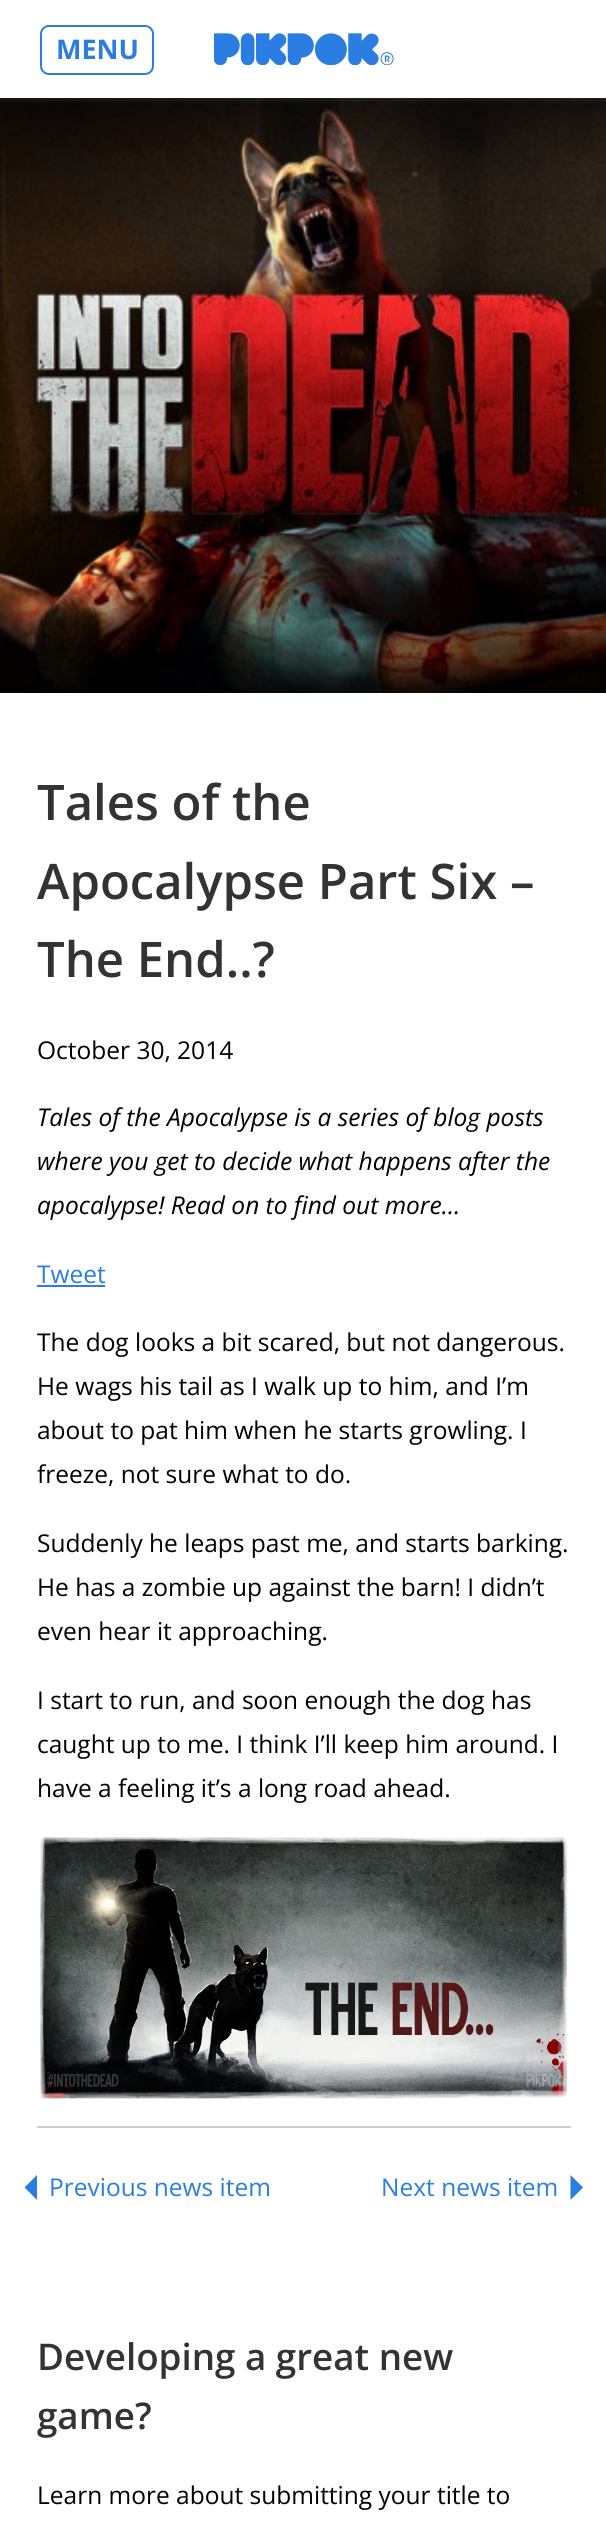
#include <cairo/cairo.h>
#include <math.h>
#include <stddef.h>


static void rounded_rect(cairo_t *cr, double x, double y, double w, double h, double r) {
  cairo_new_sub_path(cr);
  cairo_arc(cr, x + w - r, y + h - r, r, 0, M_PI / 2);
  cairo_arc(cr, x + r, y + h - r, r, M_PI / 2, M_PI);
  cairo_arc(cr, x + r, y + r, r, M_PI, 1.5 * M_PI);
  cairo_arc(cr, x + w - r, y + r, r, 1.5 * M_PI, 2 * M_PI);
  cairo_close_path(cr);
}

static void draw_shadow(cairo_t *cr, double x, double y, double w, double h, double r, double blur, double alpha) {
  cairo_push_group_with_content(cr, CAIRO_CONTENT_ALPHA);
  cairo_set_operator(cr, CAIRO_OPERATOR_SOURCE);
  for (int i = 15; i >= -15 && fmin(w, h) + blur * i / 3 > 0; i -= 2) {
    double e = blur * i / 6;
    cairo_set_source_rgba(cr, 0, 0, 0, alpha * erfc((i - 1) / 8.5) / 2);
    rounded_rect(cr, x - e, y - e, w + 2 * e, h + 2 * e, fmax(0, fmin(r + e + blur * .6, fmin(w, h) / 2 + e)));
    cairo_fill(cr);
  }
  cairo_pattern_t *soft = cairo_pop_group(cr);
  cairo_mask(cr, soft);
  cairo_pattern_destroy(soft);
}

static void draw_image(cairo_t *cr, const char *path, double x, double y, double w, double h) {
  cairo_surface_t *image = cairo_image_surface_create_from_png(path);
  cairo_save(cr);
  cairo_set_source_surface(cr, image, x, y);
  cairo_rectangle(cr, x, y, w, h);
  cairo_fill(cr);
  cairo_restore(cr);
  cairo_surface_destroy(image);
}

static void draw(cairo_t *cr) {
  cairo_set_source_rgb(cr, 1, 1, 1);
  cairo_paint(cr);
  draw_image(cr, "images/2.png", 0, 98, 606, 595);
  cairo_save(cr);
  cairo_rectangle(cr, 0, 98, 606, 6);
  cairo_clip(cr);
  cairo_set_source_rgb(cr, 55 / 255.0, 55 / 255.0, 55 / 255.0);
  draw_shadow(cr, 0, 2, 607, 98, 0, 2.5, 0.5);
  cairo_restore(cr);
  draw_image(cr, "images/1.png", 214, 33, 180, 32);
  rounded_rect(cr, 41, 26, 112, 48, 8);
  cairo_set_source_rgb(cr, 43 / 255.0, 125 / 255.0, 225 / 255.0);
  cairo_stroke(cr);
  cairo_rectangle(cr, 37, 1285, 68, 2);
  cairo_fill(cr);
  draw_image(cr, "images/3.png", 40, 1837, 527, 262);
  cairo_set_source_rgb(cr, 204 / 255.0, 204 / 255.0, 204 / 255.0);
  cairo_rectangle(cr, 37, 2126, 534, 2);
  cairo_fill(cr);
  cairo_set_source_rgb(cr, 43 / 255.0, 125 / 255.0, 225 / 255.0);
  cairo_new_path(cr);
  cairo_move_to(cr, 37, 2175);
  cairo_line_to(cr, 37, 2200);
  cairo_line_to(cr, 24.5, 2187.5);
  cairo_close_path(cr);
  cairo_fill(cr);
  cairo_new_path(cr);
  cairo_move_to(cr, 570.5, 2200);
  cairo_line_to(cr, 570.5, 2175);
  cairo_line_to(cr, 583, 2187.5);
  cairo_close_path(cr);
  cairo_fill(cr);
  cairo_select_font_face(cr, "Open Sans", CAIRO_FONT_SLANT_NORMAL, CAIRO_FONT_WEIGHT_BOLD);
  cairo_set_font_size(cr, 27);
  cairo_move_to(cr, 56, 59);
  cairo_show_text(cr, "MENU");
  cairo_select_font_face(cr, "Open Sans SemiBold", CAIRO_FONT_SLANT_NORMAL, CAIRO_FONT_WEIGHT_NORMAL);
  cairo_set_font_size(cr, 49);
  cairo_set_source_rgb(cr, 51 / 255.0, 51 / 255.0, 51 / 255.0);
  cairo_move_to(cr, 37, 820);
  cairo_show_text(cr, "Tales of the");
  cairo_move_to(cr, 37, 899);
  cairo_show_text(cr, "Apocalypse Part Six –");
  cairo_move_to(cr, 37, 977);
  cairo_show_text(cr, "The End..?");
  cairo_select_font_face(cr, "Open Sans", CAIRO_FONT_SLANT_NORMAL, CAIRO_FONT_WEIGHT_NORMAL);
  cairo_set_font_size(cr, 24.5);
  cairo_set_source_rgb(cr, 0, 0, 0);
  cairo_move_to(cr, 37, 1059);
  cairo_show_text(cr, "October 30, 2014");
  cairo_select_font_face(cr, "Open Sans", CAIRO_FONT_SLANT_ITALIC, CAIRO_FONT_WEIGHT_NORMAL);
  cairo_move_to(cr, 37, 1126);
  cairo_show_text(cr, "Tales of the Apocalypse is a series of blog posts");
  cairo_move_to(cr, 37, 1170);
  cairo_show_text(cr, "where you get to decide what happens after the");
  cairo_move_to(cr, 37, 1214);
  cairo_show_text(cr, "apocalypse! Read on to find out more…");
  cairo_select_font_face(cr, "Open Sans", CAIRO_FONT_SLANT_NORMAL, CAIRO_FONT_WEIGHT_NORMAL);
  cairo_set_source_rgb(cr, 43 / 255.0, 125 / 255.0, 225 / 255.0);
  cairo_move_to(cr, 37, 1283);
  cairo_show_text(cr, "Tweet");
  cairo_set_source_rgb(cr, 0, 0, 0);
  cairo_move_to(cr, 37, 1351);
  cairo_show_text(cr, "The dog looks a bit scared, but not dangerous.");
  cairo_move_to(cr, 37, 1395);
  cairo_show_text(cr, "He wags his tail as I walk up to him, and I’m");
  cairo_move_to(cr, 37, 1439);
  cairo_show_text(cr, "about to pat him when he starts growling. I");
  cairo_move_to(cr, 37, 1483);
  cairo_show_text(cr, "freeze, not sure what to do.");
  cairo_move_to(cr, 37, 1552);
  cairo_show_text(cr, "Suddenly he leaps past me, and starts barking.");
  cairo_move_to(cr, 37, 1596);
  cairo_show_text(cr, "He has a zombie up against the barn! I didn’t");
  cairo_move_to(cr, 37, 1640);
  cairo_show_text(cr, "even hear it approaching.");
  cairo_move_to(cr, 37, 1709);
  cairo_show_text(cr, "I start to run, and soon enough the dog has");
  cairo_move_to(cr, 37, 1753);
  cairo_show_text(cr, "caught up to me. I think I’ll keep him around. I");
  cairo_move_to(cr, 37, 1797);
  cairo_show_text(cr, "have a feeling it’s a long road ahead.");
  cairo_set_source_rgb(cr, 43 / 255.0, 125 / 255.0, 225 / 255.0);
  cairo_move_to(cr, 49, 2196);
  cairo_show_text(cr, "Previous news item");
  cairo_move_to(cr, 381, 2196);
  cairo_show_text(cr, "Next news item");
  cairo_select_font_face(cr, "Open Sans SemiBold", CAIRO_FONT_SLANT_NORMAL, CAIRO_FONT_WEIGHT_NORMAL);
  cairo_set_font_size(cr, 36.75);
  cairo_set_source_rgb(cr, 51 / 255.0, 51 / 255.0, 51 / 255.0);
  cairo_move_to(cr, 37, 2370);
  cairo_show_text(cr, "Developing a great new");
  cairo_move_to(cr, 37, 2429);
  cairo_show_text(cr, "game?");
  cairo_select_font_face(cr, "Open Sans", CAIRO_FONT_SLANT_NORMAL, CAIRO_FONT_WEIGHT_NORMAL);
  cairo_set_font_size(cr, 24.5);
  cairo_set_source_rgb(cr, 0, 0, 0);
  cairo_move_to(cr, 37, 2504);
  cairo_show_text(cr, "Learn more about submitting your title to");
}

int main(void) {
  cairo_surface_t *surface = cairo_image_surface_create(CAIRO_FORMAT_RGB24, 606, 2527);
  cairo_t *cr = cairo_create(surface);
  cairo_font_options_t *options = cairo_font_options_create();
  cairo_font_options_set_hint_metrics(options, CAIRO_HINT_METRICS_OFF);
  cairo_font_options_set_hint_style(options, CAIRO_HINT_STYLE_NONE);
  cairo_set_font_options(cr, options);
  cairo_set_miter_limit(cr, 4);
  draw(cr);
  cairo_surface_write_to_png(surface, "out.png");
  cairo_font_options_destroy(options);
  cairo_destroy(cr);
  cairo_surface_destroy(surface);
  return 0;
}
